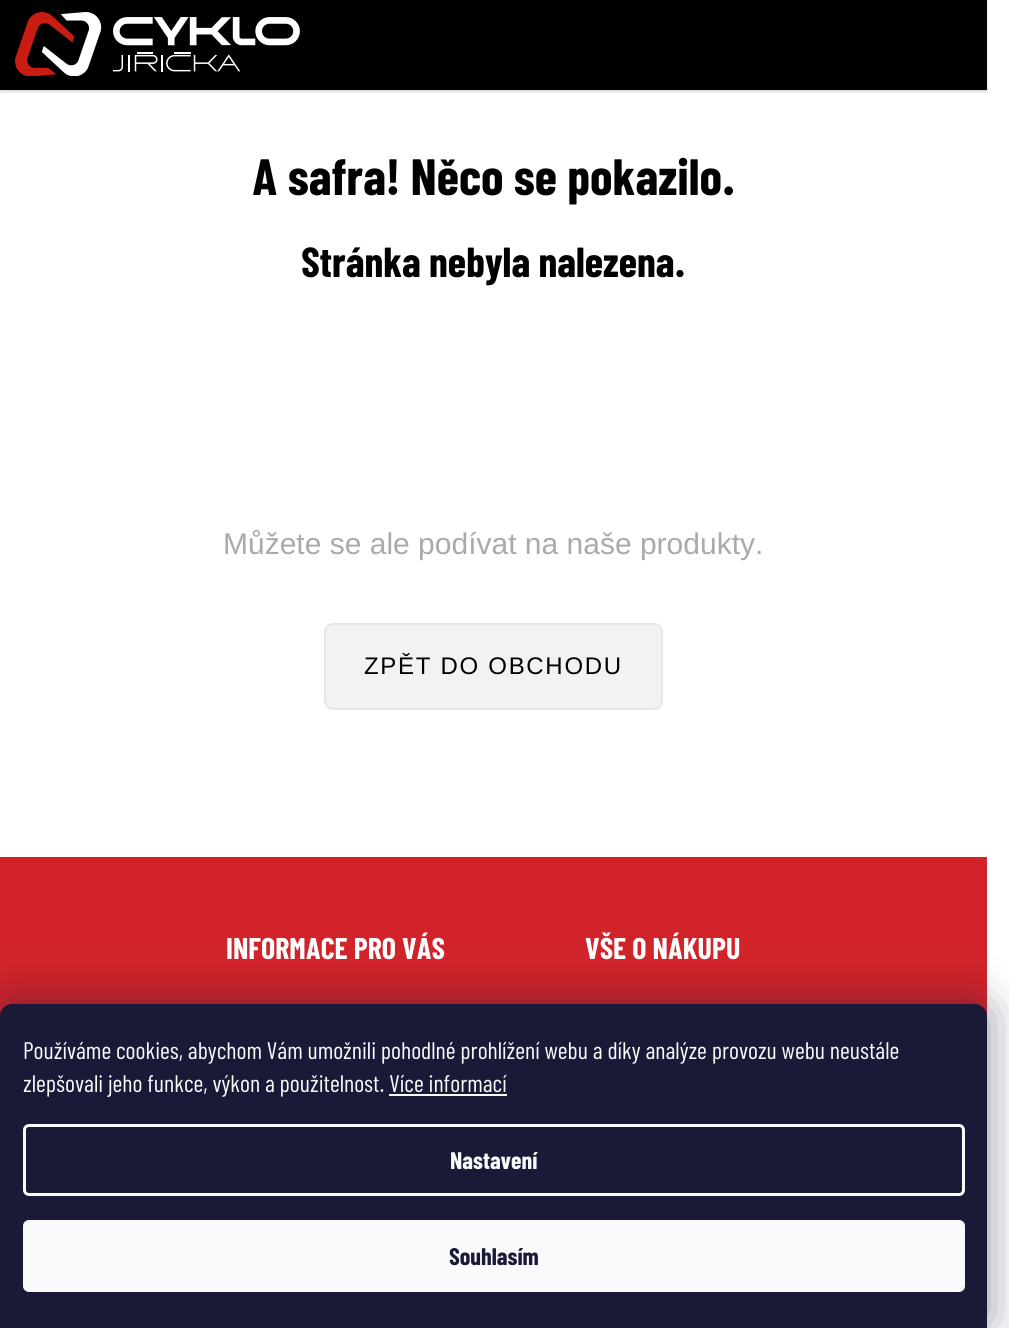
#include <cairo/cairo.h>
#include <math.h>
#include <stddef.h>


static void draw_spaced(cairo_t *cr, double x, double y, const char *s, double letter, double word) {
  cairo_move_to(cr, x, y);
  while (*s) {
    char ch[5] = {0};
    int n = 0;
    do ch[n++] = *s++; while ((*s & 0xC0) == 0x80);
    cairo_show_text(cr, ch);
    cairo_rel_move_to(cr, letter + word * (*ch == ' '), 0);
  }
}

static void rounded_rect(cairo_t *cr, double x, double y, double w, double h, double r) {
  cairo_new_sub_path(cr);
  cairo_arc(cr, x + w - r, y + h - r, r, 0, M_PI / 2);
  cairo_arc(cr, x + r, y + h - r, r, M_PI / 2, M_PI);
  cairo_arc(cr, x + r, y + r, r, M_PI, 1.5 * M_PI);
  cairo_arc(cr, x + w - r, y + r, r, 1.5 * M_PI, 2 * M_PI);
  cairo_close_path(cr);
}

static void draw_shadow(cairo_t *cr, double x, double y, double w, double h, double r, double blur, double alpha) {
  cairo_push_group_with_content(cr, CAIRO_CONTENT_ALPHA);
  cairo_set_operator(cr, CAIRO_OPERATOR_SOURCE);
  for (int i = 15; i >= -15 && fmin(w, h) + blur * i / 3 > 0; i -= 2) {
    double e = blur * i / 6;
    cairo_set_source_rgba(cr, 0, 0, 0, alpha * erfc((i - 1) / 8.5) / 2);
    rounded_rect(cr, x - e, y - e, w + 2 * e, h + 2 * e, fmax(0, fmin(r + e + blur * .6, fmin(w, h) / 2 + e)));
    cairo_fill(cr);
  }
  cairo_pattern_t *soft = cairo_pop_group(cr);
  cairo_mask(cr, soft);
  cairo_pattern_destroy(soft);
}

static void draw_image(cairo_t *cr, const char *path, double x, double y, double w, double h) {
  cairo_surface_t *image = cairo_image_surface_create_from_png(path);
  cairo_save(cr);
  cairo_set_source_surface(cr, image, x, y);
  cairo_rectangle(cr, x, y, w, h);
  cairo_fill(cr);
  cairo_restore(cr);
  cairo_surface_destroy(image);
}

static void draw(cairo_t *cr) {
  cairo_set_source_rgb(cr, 1, 1, 1);
  cairo_paint(cr);
  cairo_set_source_rgb(cr, 0, 0, 0);
  draw_shadow(cr, 0, 2, 987, 90, 0, 1.5, 0.16);
  cairo_set_source_rgb(cr, 0, 0, 0);
  cairo_rectangle(cr, 0, 0, 987, 90);
  cairo_fill(cr);
  draw_image(cr, "images/1.png", 15, 12, 285, 64);
  cairo_set_source_rgb(cr, 242 / 255.0, 242 / 255.0, 242 / 255.0);
  rounded_rect(cr, 325, 624, 337, 85, 8);
  cairo_fill_preserve(cr);
  cairo_set_source_rgb(cr, 230 / 255.0, 230 / 255.0, 230 / 255.0);
  cairo_stroke(cr);
  cairo_set_source_rgb(cr, 210 / 255.0, 35 / 255.0, 42 / 255.0);
  cairo_rectangle(cr, 0, 857, 987, 159);
  cairo_fill(cr);
  cairo_set_source_rgb(cr, 27 / 255.0, 25 / 255.0, 57 / 255.0);
  draw_shadow(cr, 0, 1004, 987, 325, 12, 22.5, 0.5);
  cairo_set_source_rgb(cr, 26 / 255.0, 25 / 255.0, 55 / 255.0);
  cairo_new_path(cr);
  cairo_move_to(cr, 12, 1004);
  cairo_line_to(cr, 975, 1004);
  cairo_curve_to(cr, 981.5, 1004, 987, 1009.5, 987, 1016);
  cairo_line_to(cr, 987, 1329);
  cairo_line_to(cr, 0, 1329);
  cairo_line_to(cr, 0, 1016);
  cairo_curve_to(cr, 0, 1009.5, 5.5, 1004, 12, 1004);
  cairo_close_path(cr);
  cairo_fill(cr);
  cairo_set_source_rgb(cr, 248 / 255.0, 250 / 255.0, 251 / 255.0);
  cairo_rectangle(cr, 389, 1094, 118, 2);
  cairo_fill(cr);
  rounded_rect(cr, 24.5, 1125.5, 939, 69, 4.5);
  cairo_set_line_width(cr, 3);
  cairo_stroke(cr);
  rounded_rect(cr, 23, 1220, 942, 72, 6);
  cairo_fill(cr);
  cairo_select_font_face(cr, "Barlow Condensed", CAIRO_FONT_SLANT_NORMAL, CAIRO_FONT_WEIGHT_BOLD);
  cairo_set_font_size(cr, 51);
  cairo_set_source_rgb(cr, 0, 0, 0);
  cairo_move_to(cr, 252, 195);
  cairo_show_text(cr, "A safra! Něco se pokazilo.");
  cairo_set_font_size(cr, 42);
  cairo_move_to(cr, 301, 277);
  cairo_show_text(cr, "Stránka nebyla nalezena.");
  cairo_select_font_face(cr, "Liberation Sans", CAIRO_FONT_SLANT_NORMAL, CAIRO_FONT_WEIGHT_NORMAL);
  cairo_set_font_size(cr, 30);
  cairo_set_source_rgb(cr, 170 / 255.0, 170 / 255.0, 170 / 255.0);
  cairo_move_to(cr, 223, 554);
  cairo_show_text(cr, "Můžete se ale podívat na naše produkty.");
  cairo_set_font_size(cr, 24);
  cairo_set_source_rgb(cr, 0, 0, 0);
  draw_spaced(cr, 364, 674, "ZPĚT DO OBCHODU", 1.7, 0);
  cairo_select_font_face(cr, "Barlow Condensed", CAIRO_FONT_SLANT_NORMAL, CAIRO_FONT_WEIGHT_BOLD);
  cairo_set_font_size(cr, 30);
  cairo_set_source_rgb(cr, 1, 1, 1);
  cairo_move_to(cr, 226, 959);
  cairo_show_text(cr, "INFORMACE PRO VÁS");
  cairo_move_to(cr, 585, 959);
  cairo_show_text(cr, "VŠE O NÁKUPU");
  cairo_select_font_face(cr, "Barlow Condensed", CAIRO_FONT_SLANT_NORMAL, CAIRO_FONT_WEIGHT_NORMAL);
  cairo_set_font_size(cr, 24);
  cairo_set_source_rgb(cr, 248 / 255.0, 250 / 255.0, 251 / 255.0);
  cairo_move_to(cr, 23, 1059);
  cairo_show_text(cr, "Používáme cookies, abychom Vám umožnili pohodlné prohlížení webu a díky analýze provozu webu neustále");
  cairo_move_to(cr, 23, 1092);
  cairo_show_text(cr, "zlepšovali jeho funkce, výkon a použitelnost. Více informací");
  cairo_select_font_face(cr, "Barlow Condensed", CAIRO_FONT_SLANT_NORMAL, CAIRO_FONT_WEIGHT_BOLD);
  cairo_move_to(cr, 450, 1169);
  cairo_show_text(cr, "Nastavení");
  cairo_set_source_rgb(cr, 26 / 255.0, 25 / 255.0, 55 / 255.0);
  cairo_move_to(cr, 449, 1265);
  cairo_show_text(cr, "Souhlasím");
}

int main(void) {
  cairo_surface_t *surface = cairo_image_surface_create(CAIRO_FORMAT_RGB24, 1009, 1328);
  cairo_t *cr = cairo_create(surface);
  cairo_font_options_t *options = cairo_font_options_create();
  cairo_font_options_set_hint_metrics(options, CAIRO_HINT_METRICS_OFF);
  cairo_font_options_set_hint_style(options, CAIRO_HINT_STYLE_NONE);
  cairo_set_font_options(cr, options);
  cairo_set_miter_limit(cr, 4);
  draw(cr);
  cairo_surface_write_to_png(surface, "out.png");
  cairo_font_options_destroy(options);
  cairo_destroy(cr);
  cairo_surface_destroy(surface);
  return 0;
}
